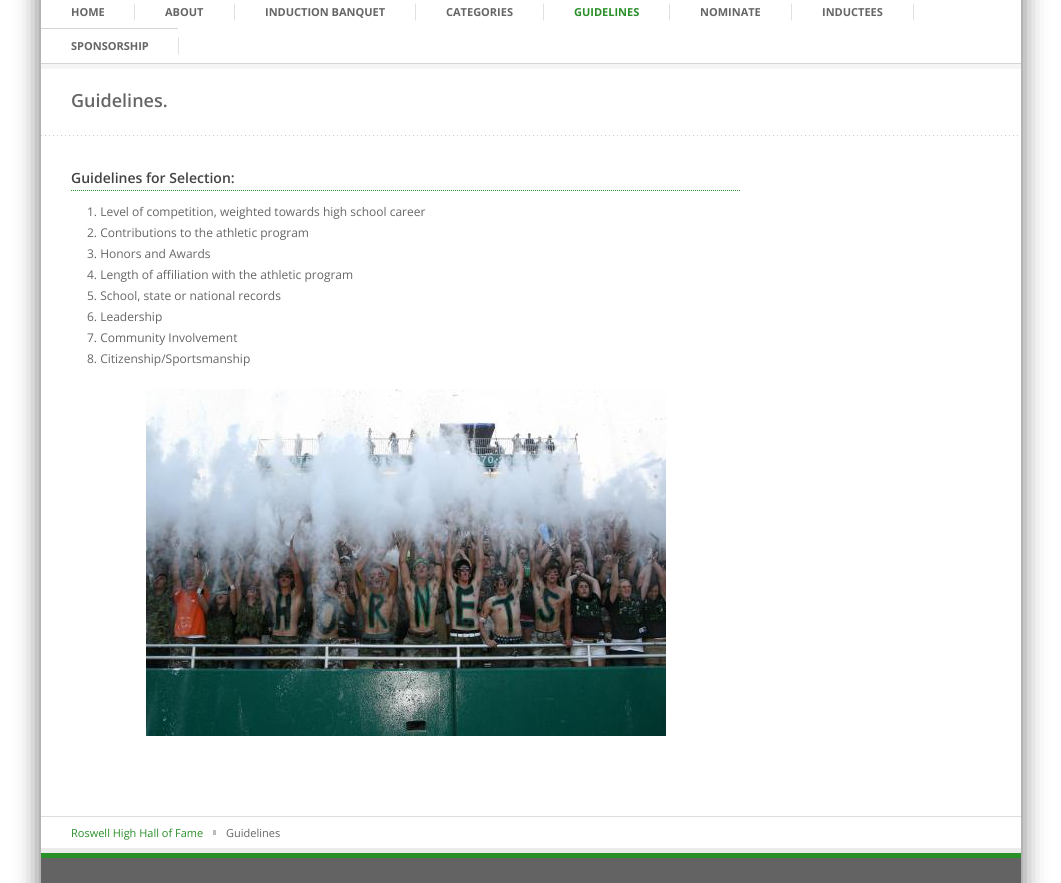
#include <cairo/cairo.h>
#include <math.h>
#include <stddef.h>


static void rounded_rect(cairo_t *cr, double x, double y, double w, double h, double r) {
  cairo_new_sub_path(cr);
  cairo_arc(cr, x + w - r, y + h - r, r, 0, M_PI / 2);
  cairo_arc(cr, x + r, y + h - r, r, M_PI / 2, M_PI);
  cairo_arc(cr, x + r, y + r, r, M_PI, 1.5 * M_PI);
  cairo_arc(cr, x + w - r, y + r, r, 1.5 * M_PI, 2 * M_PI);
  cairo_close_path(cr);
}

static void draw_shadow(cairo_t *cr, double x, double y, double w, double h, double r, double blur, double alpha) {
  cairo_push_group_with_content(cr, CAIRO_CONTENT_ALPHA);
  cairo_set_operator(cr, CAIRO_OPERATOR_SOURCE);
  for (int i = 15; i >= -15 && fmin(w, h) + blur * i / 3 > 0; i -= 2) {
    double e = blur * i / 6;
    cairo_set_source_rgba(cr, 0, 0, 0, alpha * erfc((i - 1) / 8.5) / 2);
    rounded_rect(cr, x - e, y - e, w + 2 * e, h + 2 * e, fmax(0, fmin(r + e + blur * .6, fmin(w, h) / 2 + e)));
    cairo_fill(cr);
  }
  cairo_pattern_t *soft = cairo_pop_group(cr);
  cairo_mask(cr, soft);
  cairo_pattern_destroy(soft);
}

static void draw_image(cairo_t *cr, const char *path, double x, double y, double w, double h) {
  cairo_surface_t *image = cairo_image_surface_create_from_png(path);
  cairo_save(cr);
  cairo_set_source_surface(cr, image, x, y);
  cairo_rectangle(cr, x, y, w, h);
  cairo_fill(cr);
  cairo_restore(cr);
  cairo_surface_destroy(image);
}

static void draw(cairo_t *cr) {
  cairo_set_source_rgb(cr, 1, 1, 1);
  cairo_paint(cr);
  cairo_save(cr);
  cairo_set_fill_rule(cr, CAIRO_FILL_RULE_EVEN_ODD);
  cairo_new_path(cr);
  cairo_move_to(cr, 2, 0);
  cairo_line_to(cr, 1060, 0);
  cairo_line_to(cr, 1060, 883);
  cairo_line_to(cr, 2, 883);
  cairo_close_path(cr);
  cairo_move_to(cr, 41, -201);
  cairo_line_to(cr, 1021, -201);
  cairo_line_to(cr, 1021, 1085);
  cairo_line_to(cr, 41, 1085);
  cairo_close_path(cr);
  cairo_clip(cr);
  cairo_set_source_rgb(cr, 0, 0, 0);
  draw_shadow(cr, 41, -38, 980, 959, 0, 12.5, 0.6);
  cairo_restore(cr);
  draw_image(cr, "images/1.png", 134, 3, 1, 18);
  draw_image(cr, "images/1.png", 234, 3, 1, 18);
  draw_image(cr, "images/1.png", 415, 3, 1, 18);
  draw_image(cr, "images/1.png", 543, 3, 1, 18);
  draw_image(cr, "images/1.png", 669, 3, 1, 18);
  draw_image(cr, "images/1.png", 791, 3, 1, 18);
  draw_image(cr, "images/1.png", 913, 3, 1, 18);
  draw_image(cr, "images/1.png", 178, 37, 1, 18);
  cairo_set_source_rgb(cr, 213 / 255.0, 213 / 255.0, 213 / 255.0);
  cairo_rectangle(cr, 41, 28, 137, 1);
  cairo_fill(cr);
  cairo_set_source_rgb(cr, 245 / 255.0, 245 / 255.0, 245 / 255.0);
  cairo_rectangle(cr, 41, 64, 980, 5);
  cairo_fill(cr);
  cairo_set_source_rgb(cr, 213 / 255.0, 213 / 255.0, 213 / 255.0);
  cairo_rectangle(cr, 41, 63, 980, 1);
  cairo_fill(cr);
  draw_image(cr, "images/2.png", 41, 135, 977, 1);
  cairo_new_path(cr);
  cairo_move_to(cr, 71, 190.5);
  cairo_line_to(cr, 741, 190.5);
  cairo_set_source_rgb(cr, 41 / 255.0, 143 / 255.0, 41 / 255.0);
  cairo_set_line_width(cr, 1);
  cairo_set_dash(cr, (double[]){1, 1}, 2, 0);
  cairo_stroke(cr);
  draw_image(cr, "images/3.png", 146, 389, 520, 347);
  cairo_set_source_rgb(cr, 222 / 255.0, 222 / 255.0, 222 / 255.0);
  cairo_rectangle(cr, 41, 816, 980, 1);
  cairo_fill(cr);
  cairo_set_source_rgb(cr, 235 / 255.0, 235 / 255.0, 235 / 255.0);
  cairo_rectangle(cr, 41, 848, 980, 5);
  cairo_fill(cr);
  cairo_set_source_rgb(cr, 188 / 255.0, 188 / 255.0, 188 / 255.0);
  cairo_rectangle(cr, 213, 830, 3, 5);
  cairo_fill(cr);
  cairo_set_source_rgb(cr, 41 / 255.0, 143 / 255.0, 41 / 255.0);
  cairo_rectangle(cr, 41, 853, 980, 5);
  cairo_fill(cr);
  cairo_set_source_rgb(cr, 99 / 255.0, 99 / 255.0, 99 / 255.0);
  cairo_rectangle(cr, 41, 858, 980, 25);
  cairo_fill(cr);
  cairo_select_font_face(cr, "Open Sans", CAIRO_FONT_SLANT_NORMAL, CAIRO_FONT_WEIGHT_BOLD);
  cairo_set_font_size(cr, 11);
  cairo_set_source_rgb(cr, 102 / 255.0, 102 / 255.0, 102 / 255.0);
  cairo_move_to(cr, 71, 16);
  cairo_show_text(cr, "HOME");
  cairo_move_to(cr, 165, 16);
  cairo_show_text(cr, "ABOUT");
  cairo_move_to(cr, 265, 16);
  cairo_show_text(cr, "INDUCTION BANQUET");
  cairo_move_to(cr, 446, 16);
  cairo_show_text(cr, "CATEGORIES");
  cairo_set_source_rgb(cr, 41 / 255.0, 143 / 255.0, 41 / 255.0);
  cairo_move_to(cr, 574, 16);
  cairo_show_text(cr, "GUIDELINES");
  cairo_set_source_rgb(cr, 102 / 255.0, 102 / 255.0, 102 / 255.0);
  cairo_move_to(cr, 700, 16);
  cairo_show_text(cr, "NOMINATE");
  cairo_move_to(cr, 822, 16);
  cairo_show_text(cr, "INDUCTEES");
  cairo_move_to(cr, 71, 50);
  cairo_show_text(cr, "SPONSORSHIP");
  cairo_select_font_face(cr, "Open Sans SemiBold", CAIRO_FONT_SLANT_NORMAL, CAIRO_FONT_WEIGHT_NORMAL);
  cairo_set_font_size(cr, 18);
  cairo_move_to(cr, 71, 107);
  cairo_show_text(cr, "Guidelines.");
  cairo_set_font_size(cr, 14);
  cairo_set_source_rgb(cr, 67 / 255.0, 66 / 255.0, 66 / 255.0);
  cairo_move_to(cr, 71, 183);
  cairo_show_text(cr, "Guidelines for Selection:");
  cairo_select_font_face(cr, "Open Sans", CAIRO_FONT_SLANT_NORMAL, CAIRO_FONT_WEIGHT_NORMAL);
  cairo_set_font_size(cr, 12);
  cairo_set_source_rgb(cr, 102 / 255.0, 102 / 255.0, 102 / 255.0);
  cairo_move_to(cr, 87, 216);
  cairo_show_text(cr, "1. Level of competition, weighted towards high school career");
  cairo_move_to(cr, 87, 237);
  cairo_show_text(cr, "2. Contributions to the athletic program");
  cairo_move_to(cr, 87, 258);
  cairo_show_text(cr, "3. Honors and Awards");
  cairo_move_to(cr, 87, 279);
  cairo_show_text(cr, "4. Length of affiliation with the athletic program");
  cairo_move_to(cr, 87, 300);
  cairo_show_text(cr, "5. School, state or national records");
  cairo_move_to(cr, 87, 321);
  cairo_show_text(cr, "6. Leadership");
  cairo_move_to(cr, 87, 342);
  cairo_show_text(cr, "7. Community Involvement");
  cairo_move_to(cr, 87, 363);
  cairo_show_text(cr, "8. Citizenship/Sportsmanship");
  cairo_set_font_size(cr, 11);
  cairo_set_source_rgb(cr, 41 / 255.0, 143 / 255.0, 41 / 255.0);
  cairo_move_to(cr, 71, 837);
  cairo_show_text(cr, "Roswell High Hall of Fame");
  cairo_set_source_rgb(cr, 102 / 255.0, 102 / 255.0, 102 / 255.0);
  cairo_move_to(cr, 226, 837);
  cairo_show_text(cr, "Guidelines");
}

int main(void) {
  cairo_surface_t *surface = cairo_image_surface_create(CAIRO_FORMAT_RGB24, 1061, 883);
  cairo_t *cr = cairo_create(surface);
  cairo_font_options_t *options = cairo_font_options_create();
  cairo_font_options_set_hint_metrics(options, CAIRO_HINT_METRICS_OFF);
  cairo_font_options_set_hint_style(options, CAIRO_HINT_STYLE_NONE);
  cairo_set_font_options(cr, options);
  cairo_set_miter_limit(cr, 4);
  draw(cr);
  cairo_surface_write_to_png(surface, "out.png");
  cairo_font_options_destroy(options);
  cairo_destroy(cr);
  cairo_surface_destroy(surface);
  return 0;
}
